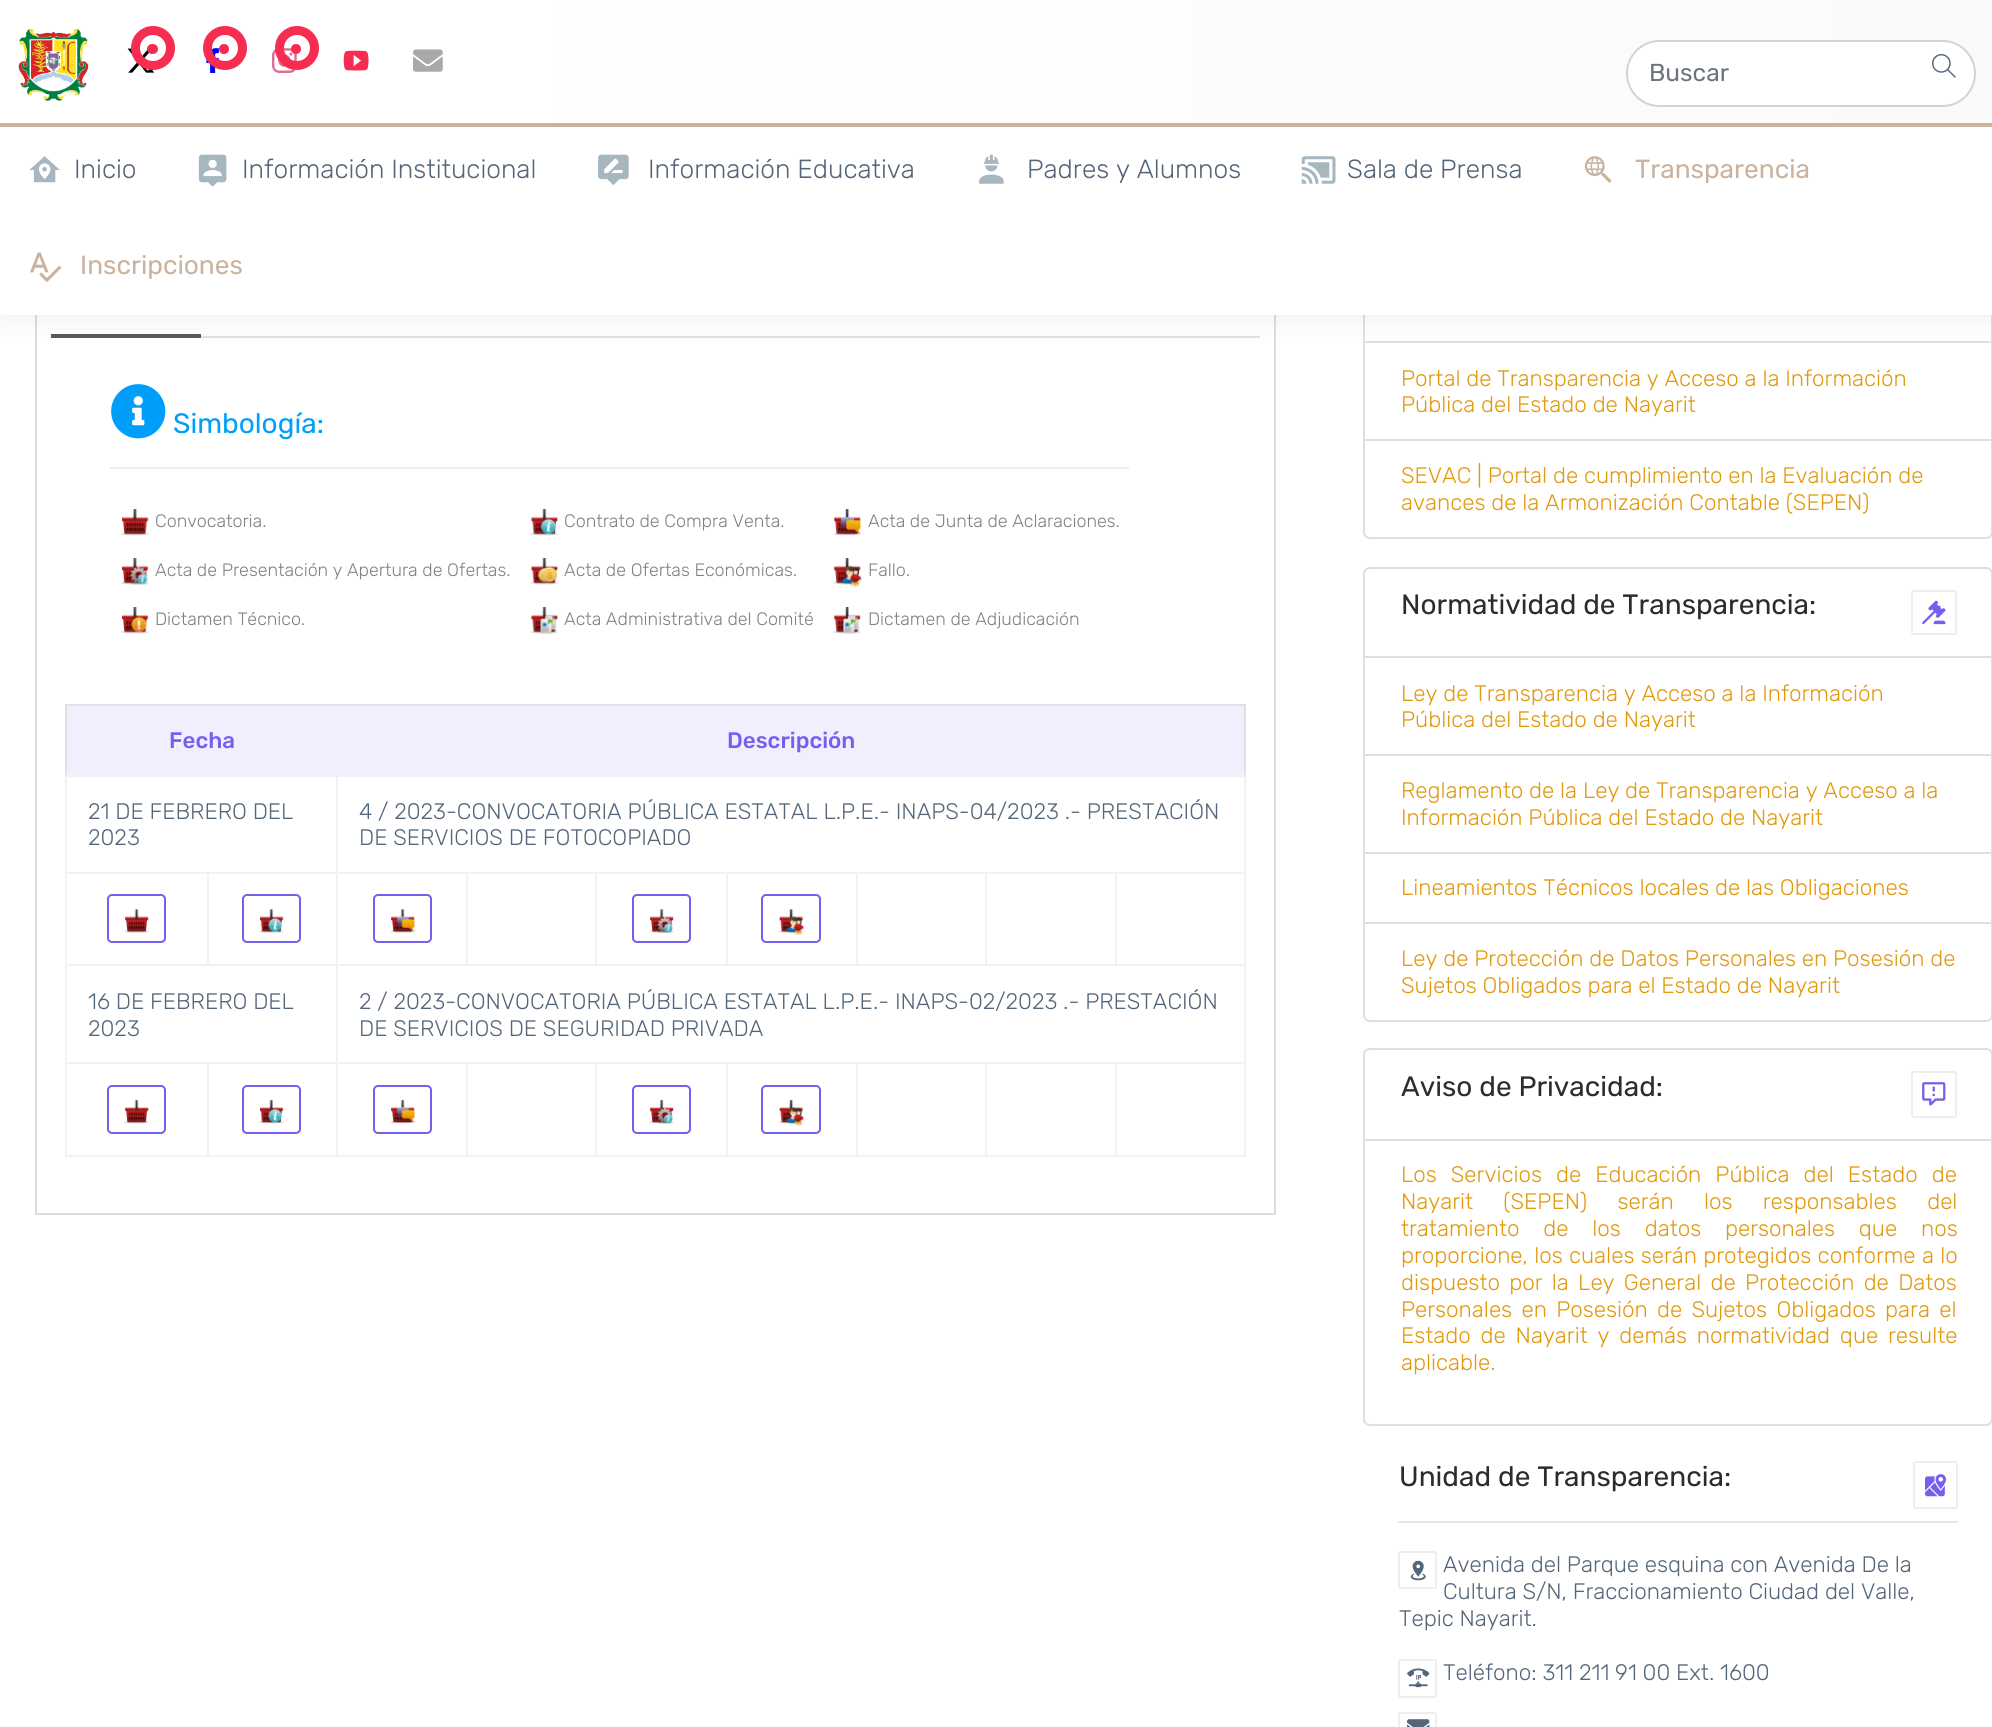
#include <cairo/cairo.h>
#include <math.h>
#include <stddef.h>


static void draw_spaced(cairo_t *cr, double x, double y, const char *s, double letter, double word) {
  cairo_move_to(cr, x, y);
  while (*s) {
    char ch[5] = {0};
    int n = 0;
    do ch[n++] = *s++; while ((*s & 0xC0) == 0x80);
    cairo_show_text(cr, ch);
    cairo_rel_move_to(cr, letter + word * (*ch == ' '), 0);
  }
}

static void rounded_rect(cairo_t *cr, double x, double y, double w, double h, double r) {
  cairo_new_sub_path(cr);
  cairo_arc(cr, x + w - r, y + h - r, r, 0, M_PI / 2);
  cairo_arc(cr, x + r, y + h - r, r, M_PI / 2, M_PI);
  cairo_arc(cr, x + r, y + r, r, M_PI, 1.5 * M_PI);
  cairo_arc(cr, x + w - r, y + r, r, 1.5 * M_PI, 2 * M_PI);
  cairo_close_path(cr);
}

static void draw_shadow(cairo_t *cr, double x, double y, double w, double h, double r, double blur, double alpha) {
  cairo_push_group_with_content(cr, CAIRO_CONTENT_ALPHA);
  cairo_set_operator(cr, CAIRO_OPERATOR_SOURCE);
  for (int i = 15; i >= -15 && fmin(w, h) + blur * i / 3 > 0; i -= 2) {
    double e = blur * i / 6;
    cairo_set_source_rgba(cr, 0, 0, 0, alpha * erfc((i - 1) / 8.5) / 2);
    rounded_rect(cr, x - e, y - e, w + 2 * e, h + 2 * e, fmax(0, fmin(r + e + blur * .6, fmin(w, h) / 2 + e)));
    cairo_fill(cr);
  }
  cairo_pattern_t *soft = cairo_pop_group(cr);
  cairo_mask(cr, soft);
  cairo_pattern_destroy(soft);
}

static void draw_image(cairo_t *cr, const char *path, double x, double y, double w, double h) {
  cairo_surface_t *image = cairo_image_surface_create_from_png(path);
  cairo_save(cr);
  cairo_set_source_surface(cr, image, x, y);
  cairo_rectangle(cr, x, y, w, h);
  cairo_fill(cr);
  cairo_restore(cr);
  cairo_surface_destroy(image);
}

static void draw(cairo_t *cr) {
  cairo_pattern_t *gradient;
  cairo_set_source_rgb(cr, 1, 1, 1);
  cairo_paint(cr);
  cairo_set_source_rgb(cr, 221 / 255.0, 221 / 255.0, 221 / 255.0);
  cairo_rectangle(cr, 1274, 315, 2, 900);
  cairo_fill(cr);
  cairo_rectangle(cr, 35, 1213, 1241, 2);
  cairo_fill(cr);
  cairo_rectangle(cr, 35, 315, 2, 900);
  cairo_fill(cr);
  cairo_set_source_rgb(cr, 222 / 255.0, 226 / 255.0, 230 / 255.0);
  cairo_rectangle(cr, 201, 336, 1059, 2);
  cairo_fill(cr);
  cairo_set_source_rgb(cr, 94 / 255.0, 88 / 255.0, 92 / 255.0);
  cairo_rectangle(cr, 51, 334, 150, 4);
  cairo_fill(cr);
  cairo_rectangle(cr, 1364, 246, 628, 96);
  cairo_set_source_rgb(cr, 223 / 255.0, 223 / 255.0, 223 / 255.0);
  cairo_stroke(cr);
  cairo_rectangle(cr, 1364, 342, 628, 98);
  cairo_stroke(cr);
  cairo_set_source_rgb(cr, 0, 0, 0);
  draw_shadow(cr, 2, 0, 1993, 315, 0, 17.5, 0.08);
  gradient = cairo_pattern_create_linear(0, 61, 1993, 61);
  cairo_pattern_add_color_stop_rgba(gradient, 0.2, 1, 1, 1, 1);
  cairo_pattern_add_color_stop_rgba(gradient, 1, 250 / 255.0, 250 / 255.0, 250 / 255.0, 1);
  cairo_set_source(cr, gradient);
  cairo_pattern_destroy(gradient);
  cairo_rectangle(cr, 0, 0, 1992, 123);
  cairo_fill(cr);
  cairo_set_source_rgb(cr, 202 / 255.0, 179 / 255.0, 158 / 255.0);
  cairo_rectangle(cr, 0, 123, 1992, 4);
  cairo_fill(cr);
  draw_image(cr, "images/1.png", 18, 29, 71, 72);
  draw_image(cr, "images/2.png", 127, 48, 28, 25);
  cairo_set_source_rgb(cr, 246 / 255.0, 45 / 255.0, 81 / 255.0);
  rounded_rect(cr, 147, 44, 11, 10, 5);
  cairo_fill(cr);
  cairo_arc(cr, 153, 48, 17.5, 0, 2 * M_PI);
  cairo_set_line_width(cr, 9);
  cairo_stroke(cr);
  cairo_arc(cr, 224, 49, 5, 0, 2 * M_PI);
  cairo_fill(cr);
  draw_image(cr, "images/3.png", 206, 48, 13, 25);
  cairo_arc(cr, 225, 48, 17.5, 0, 2 * M_PI);
  cairo_stroke(cr);
  draw_image(cr, "images/4.png", 272, 48, 25, 25);
  cairo_arc(cr, 296, 49, 5, 0, 2 * M_PI);
  cairo_fill(cr);
  cairo_arc(cr, 297, 48, 17.5, 0, 2 * M_PI);
  cairo_stroke(cr);
  draw_image(cr, "images/5.png", 343, 50, 26, 21);
  draw_image(cr, "images/6.png", 413, 49, 30, 23);
  cairo_set_source_rgb(cr, 1, 1, 1);
  rounded_rect(cr, 1627, 41, 348, 65, 32.5);
  cairo_fill_preserve(cr);
  cairo_set_source_rgb(cr, 206 / 255.0, 212 / 255.0, 218 / 255.0);
  cairo_set_line_width(cr, 2);
  cairo_stroke(cr);
  draw_image(cr, "images/7.png", 1932, 54, 24, 24);
  cairo_set_source_rgb(cr, 1, 1, 1);
  cairo_rectangle(cr, 0, 127, 1992, 188);
  cairo_fill(cr);
  draw_image(cr, "images/8.png", 29, 156, 31, 27);
  draw_image(cr, "images/9.png", 198, 154, 29, 33);
  draw_image(cr, "images/10.png", 598, 154, 31, 32);
  draw_image(cr, "images/11.png", 979, 154, 25, 30);
  draw_image(cr, "images/12.png", 1301, 156, 35, 28);
  draw_image(cr, "images/13.png", 1584, 156, 28, 27);
  draw_image(cr, "images/14.png", 30, 252, 32, 31);
  draw_image(cr, "images/15.png", 111, 384, 55, 55);
  cairo_set_source_rgb(cr, 236 / 255.0, 236 / 255.0, 246 / 255.0);
  cairo_rectangle(cr, 110, 467, 1019, 2);
  cairo_fill(cr);
  draw_image(cr, "images/16.png", 121, 509, 28, 27);
  draw_image(cr, "images/17.png", 530, 509, 28, 27);
  draw_image(cr, "images/18.png", 833, 509, 29, 27);
  draw_image(cr, "images/19.png", 121, 558, 28, 27);
  draw_image(cr, "images/20.png", 530, 558, 28, 27);
  draw_image(cr, "images/21.png", 833, 558, 29, 29);
  draw_image(cr, "images/22.png", 121, 607, 28, 27);
  draw_image(cr, "images/23.png", 530, 607, 28, 27);
  draw_image(cr, "images/24.png", 833, 607, 28, 27);
  cairo_set_source_rgb(cr, 222 / 255.0, 226 / 255.0, 230 / 255.0);
  cairo_rectangle(cr, 65, 704, 1181, 2);
  cairo_fill(cr);
  cairo_rectangle(cr, 1244, 704, 2, 71);
  cairo_fill(cr);
  cairo_rectangle(cr, 65, 704, 2, 71);
  cairo_fill(cr);
  cairo_set_source_rgb(cr, 241 / 255.0, 239 / 255.0, 253 / 255.0);
  cairo_rectangle(cr, 67, 706, 1177, 69);
  cairo_fill(cr);
  cairo_set_source_rgb(cr, 243 / 255.0, 241 / 255.0, 241 / 255.0);
  cairo_rectangle(cr, 336, 775, 910, 2);
  cairo_fill(cr);
  cairo_rectangle(cr, 1115, 872, 131, 2);
  cairo_fill(cr);
  cairo_rectangle(cr, 336, 964, 910, 2);
  cairo_fill(cr);
  cairo_rectangle(cr, 1115, 872, 2, 94);
  cairo_fill(cr);
  cairo_rectangle(cr, 985, 872, 132, 2);
  cairo_fill(cr);
  cairo_rectangle(cr, 985, 872, 2, 94);
  cairo_fill(cr);
  cairo_rectangle(cr, 856, 872, 131, 2);
  cairo_fill(cr);
  cairo_rectangle(cr, 856, 872, 2, 94);
  cairo_fill(cr);
  cairo_rectangle(cr, 726, 872, 132, 2);
  cairo_fill(cr);
  cairo_rectangle(cr, 726, 872, 2, 94);
  cairo_fill(cr);
  cairo_rectangle(cr, 595, 872, 133, 2);
  cairo_fill(cr);
  cairo_rectangle(cr, 595, 872, 2, 94);
  cairo_fill(cr);
  cairo_rectangle(cr, 466, 872, 131, 2);
  cairo_fill(cr);
  cairo_rectangle(cr, 466, 872, 2, 94);
  cairo_fill(cr);
  cairo_rectangle(cr, 336, 872, 131, 2);
  cairo_fill(cr);
  cairo_rectangle(cr, 1115, 1062, 131, 2);
  cairo_fill(cr);
  cairo_rectangle(cr, 1244, 1062, 2, 95);
  cairo_fill(cr);
  cairo_rectangle(cr, 1115, 1155, 131, 2);
  cairo_fill(cr);
  cairo_rectangle(cr, 1115, 1062, 2, 95);
  cairo_fill(cr);
  cairo_rectangle(cr, 985, 1062, 132, 2);
  cairo_fill(cr);
  cairo_rectangle(cr, 985, 1155, 132, 2);
  cairo_fill(cr);
  cairo_rectangle(cr, 985, 1062, 2, 95);
  cairo_fill(cr);
  cairo_rectangle(cr, 856, 1062, 131, 2);
  cairo_fill(cr);
  cairo_rectangle(cr, 856, 1155, 131, 2);
  cairo_fill(cr);
  cairo_rectangle(cr, 856, 1062, 2, 95);
  cairo_fill(cr);
  cairo_rectangle(cr, 726, 1062, 132, 2);
  cairo_fill(cr);
  cairo_rectangle(cr, 726, 1155, 132, 2);
  cairo_fill(cr);
  cairo_rectangle(cr, 726, 1062, 2, 95);
  cairo_fill(cr);
  cairo_rectangle(cr, 595, 1062, 133, 2);
  cairo_fill(cr);
  cairo_rectangle(cr, 595, 1155, 133, 2);
  cairo_fill(cr);
  cairo_rectangle(cr, 595, 1062, 2, 95);
  cairo_fill(cr);
  cairo_rectangle(cr, 466, 1062, 131, 2);
  cairo_fill(cr);
  cairo_rectangle(cr, 466, 1155, 131, 2);
  cairo_fill(cr);
  cairo_rectangle(cr, 466, 1062, 2, 95);
  cairo_fill(cr);
  cairo_rectangle(cr, 336, 1062, 131, 2);
  cairo_fill(cr);
  cairo_rectangle(cr, 336, 1155, 131, 2);
  cairo_fill(cr);
  cairo_rectangle(cr, 336, 1062, 2, 95);
  cairo_fill(cr);
  cairo_rectangle(cr, 207, 1062, 131, 2);
  cairo_fill(cr);
  cairo_rectangle(cr, 336, 964, 2, 100);
  cairo_fill(cr);
  cairo_rectangle(cr, 65, 964, 273, 2);
  cairo_fill(cr);
  cairo_rectangle(cr, 336, 872, 2, 94);
  cairo_fill(cr);
  cairo_rectangle(cr, 207, 872, 131, 2);
  cairo_fill(cr);
  cairo_rectangle(cr, 336, 775, 2, 98);
  cairo_fill(cr);
  cairo_rectangle(cr, 65, 775, 273, 2);
  cairo_fill(cr);
  cairo_rectangle(cr, 207, 872, 2, 94);
  cairo_fill(cr);
  cairo_rectangle(cr, 65, 872, 143, 2);
  cairo_fill(cr);
  cairo_rectangle(cr, 207, 1155, 131, 2);
  cairo_fill(cr);
  cairo_rectangle(cr, 207, 1062, 2, 95);
  cairo_fill(cr);
  cairo_rectangle(cr, 65, 1062, 143, 2);
  cairo_fill(cr);
  cairo_rectangle(cr, 65, 1155, 143, 2);
  cairo_fill(cr);
  cairo_rectangle(cr, 65, 1062, 2, 95);
  cairo_fill(cr);
  cairo_rectangle(cr, 65, 964, 2, 100);
  cairo_fill(cr);
  cairo_rectangle(cr, 65, 872, 2, 94);
  cairo_fill(cr);
  cairo_rectangle(cr, 65, 775, 2, 98);
  cairo_fill(cr);
  cairo_rectangle(cr, 1244, 964, 2, 100);
  cairo_fill(cr);
  cairo_rectangle(cr, 1244, 872, 2, 94);
  cairo_fill(cr);
  cairo_rectangle(cr, 1244, 775, 2, 98);
  cairo_fill(cr);
  rounded_rect(cr, 108, 895, 57, 47, 4);
  cairo_set_source_rgb(cr, 116 / 255.0, 96 / 255.0, 238 / 255.0);
  cairo_stroke(cr);
  draw_image(cr, "images/25.png", 124, 909, 25, 24);
  rounded_rect(cr, 243, 895, 57, 47, 4);
  cairo_stroke(cr);
  draw_image(cr, "images/26.png", 259, 909, 25, 24);
  rounded_rect(cr, 374, 895, 57, 47, 4);
  cairo_stroke(cr);
  draw_image(cr, "images/27.png", 390, 909, 26, 24);
  rounded_rect(cr, 633, 895, 57, 47, 4);
  cairo_stroke(cr);
  draw_image(cr, "images/28.png", 649, 909, 25, 24);
  rounded_rect(cr, 762, 895, 58, 47, 4);
  cairo_stroke(cr);
  draw_image(cr, "images/29.png", 778, 909, 27, 26);
  rounded_rect(cr, 108, 1086, 57, 47, 4);
  cairo_stroke(cr);
  draw_image(cr, "images/30.png", 124, 1100, 25, 24);
  rounded_rect(cr, 243, 1086, 57, 47, 4);
  cairo_stroke(cr);
  draw_image(cr, "images/31.png", 259, 1100, 25, 24);
  rounded_rect(cr, 374, 1086, 57, 47, 4);
  cairo_stroke(cr);
  draw_image(cr, "images/32.png", 390, 1100, 26, 24);
  rounded_rect(cr, 633, 1086, 57, 47, 4);
  cairo_stroke(cr);
  draw_image(cr, "images/33.png", 649, 1100, 25, 24);
  rounded_rect(cr, 762, 1086, 58, 47, 4);
  cairo_stroke(cr);
  draw_image(cr, "images/34.png", 778, 1100, 27, 26);
  cairo_set_source_rgb(cr, 1, 1, 1);
  cairo_new_path(cr);
  cairo_move_to(cr, 1364, 440);
  cairo_line_to(cr, 1992, 440);
  cairo_line_to(cr, 1992, 532);
  cairo_curve_to(cr, 1992, 535.5, 1989.5, 538, 1986, 538);
  cairo_line_to(cr, 1370, 538);
  cairo_curve_to(cr, 1366.5, 538, 1364, 535.5, 1364, 532);
  cairo_close_path(cr);
  cairo_fill_preserve(cr);
  cairo_set_source_rgb(cr, 223 / 255.0, 223 / 255.0, 223 / 255.0);
  cairo_stroke(cr);
  cairo_new_path(cr);
  cairo_move_to(cr, 1370, 568);
  cairo_line_to(cr, 1986, 568);
  cairo_curve_to(cr, 1989.5, 568, 1992, 570.5, 1992, 574);
  cairo_line_to(cr, 1992, 657);
  cairo_line_to(cr, 1364, 657);
  cairo_line_to(cr, 1364, 574);
  cairo_curve_to(cr, 1364, 570.5, 1366.5, 568, 1370, 568);
  cairo_close_path(cr);
  cairo_stroke(cr);
  rounded_rect(cr, 1912, 591, 44, 43, 1.5);
  cairo_set_source_rgb(cr, 238 / 255.0, 238 / 255.0, 238 / 255.0);
  cairo_stroke(cr);
  draw_image(cr, "images/35.png", 1922, 600, 24, 25);
  cairo_rectangle(cr, 1364, 657, 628, 98);
  cairo_set_source_rgb(cr, 223 / 255.0, 223 / 255.0, 223 / 255.0);
  cairo_stroke(cr);
  cairo_rectangle(cr, 1364, 755, 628, 98);
  cairo_stroke(cr);
  cairo_rectangle(cr, 1364, 853, 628, 70);
  cairo_stroke(cr);
  cairo_set_source_rgb(cr, 1, 1, 1);
  cairo_new_path(cr);
  cairo_move_to(cr, 1364, 923);
  cairo_line_to(cr, 1992, 923);
  cairo_line_to(cr, 1992, 1015);
  cairo_curve_to(cr, 1992, 1018.5, 1989.5, 1021, 1986, 1021);
  cairo_line_to(cr, 1370, 1021);
  cairo_curve_to(cr, 1366.5, 1021, 1364, 1018.5, 1364, 1015);
  cairo_close_path(cr);
  cairo_fill_preserve(cr);
  cairo_set_source_rgb(cr, 223 / 255.0, 223 / 255.0, 223 / 255.0);
  cairo_stroke(cr);
  cairo_new_path(cr);
  cairo_move_to(cr, 1370, 1049);
  cairo_line_to(cr, 1986, 1049);
  cairo_curve_to(cr, 1989.5, 1049, 1992, 1051.5, 1992, 1055);
  cairo_line_to(cr, 1992, 1140);
  cairo_line_to(cr, 1364, 1140);
  cairo_line_to(cr, 1364, 1055);
  cairo_curve_to(cr, 1364, 1051.5, 1366.5, 1049, 1370, 1049);
  cairo_close_path(cr);
  cairo_stroke(cr);
  rounded_rect(cr, 1912, 1072, 44, 45, 1.5);
  cairo_set_source_rgb(cr, 238 / 255.0, 238 / 255.0, 238 / 255.0);
  cairo_stroke(cr);
  draw_image(cr, "images/36.png", 1922, 1082, 24, 24);
  cairo_set_source_rgb(cr, 1, 1, 1);
  cairo_new_path(cr);
  cairo_move_to(cr, 1364, 1140);
  cairo_line_to(cr, 1992, 1140);
  cairo_line_to(cr, 1992, 1419);
  cairo_curve_to(cr, 1992, 1422.5, 1989.5, 1425, 1986, 1425);
  cairo_line_to(cr, 1370, 1425);
  cairo_curve_to(cr, 1366.5, 1425, 1364, 1422.5, 1364, 1419);
  cairo_close_path(cr);
  cairo_fill_preserve(cr);
  cairo_set_source_rgb(cr, 223 / 255.0, 223 / 255.0, 223 / 255.0);
  cairo_stroke(cr);
  rounded_rect(cr, 1914, 1462, 43, 46, 1.5);
  cairo_set_source_rgb(cr, 238 / 255.0, 238 / 255.0, 238 / 255.0);
  cairo_stroke(cr);
  draw_image(cr, "images/37.png", 1925, 1474, 21, 23);
  cairo_set_source_rgb(cr, 230 / 255.0, 230 / 255.0, 230 / 255.0);
  cairo_rectangle(cr, 1398, 1521, 560, 2);
  cairo_fill(cr);
  rounded_rect(cr, 1399, 1552, 37, 36, 1.5);
  cairo_set_source_rgb(cr, 238 / 255.0, 238 / 255.0, 238 / 255.0);
  cairo_stroke(cr);
  draw_image(cr, "images/38.png", 1410, 1560, 16, 21);
  rounded_rect(cr, 1399, 1660, 37, 37, 1.5);
  cairo_stroke(cr);
  draw_image(cr, "images/39.png", 1407, 1668, 23, 20);
  rounded_rect(cr, 1399, 1713, 37, 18, 1.5);
  cairo_stroke(cr);
  draw_image(cr, "images/40.png", 1407, 1719, 23, 8);
  cairo_select_font_face(cr, "Rubik", CAIRO_FONT_SLANT_NORMAL, CAIRO_FONT_WEIGHT_NORMAL);
  cairo_set_font_size(cr, 24.5);
  cairo_set_source_rgb(cr, 108 / 255.0, 117 / 255.0, 125 / 255.0);
  cairo_move_to(cr, 1649, 81);
  cairo_show_text(cr, "Buscar");
  cairo_select_font_face(cr, "Rubik Light", CAIRO_FONT_SLANT_NORMAL, CAIRO_FONT_WEIGHT_NORMAL);
  cairo_set_font_size(cr, 26.25);
  cairo_set_source_rgb(cr, 84 / 255.0, 102 / 255.0, 122 / 255.0);
  cairo_move_to(cr, 74, 178);
  cairo_show_text(cr, "Inicio");
  cairo_move_to(cr, 242, 178);
  cairo_show_text(cr, "Información Institucional");
  cairo_move_to(cr, 648, 178);
  cairo_show_text(cr, "Información Educativa");
  cairo_move_to(cr, 1027, 178);
  cairo_show_text(cr, "Padres y Alumnos");
  cairo_move_to(cr, 1347, 178);
  cairo_show_text(cr, "Sala de Prensa");
  cairo_select_font_face(cr, "Rubik", CAIRO_FONT_SLANT_NORMAL, CAIRO_FONT_WEIGHT_NORMAL);
  cairo_set_source_rgb(cr, 202 / 255.0, 179 / 255.0, 158 / 255.0);
  cairo_move_to(cr, 1635, 178);
  cairo_show_text(cr, "Transparencia");
  cairo_move_to(cr, 80, 274);
  cairo_show_text(cr, "Inscripciones");
  cairo_set_font_size(cr, 28);
  cairo_set_source_rgb(cr, 0, 158 / 255.0, 251 / 255.0);
  cairo_move_to(cr, 173, 433);
  cairo_show_text(cr, "Simbología:");
  cairo_select_font_face(cr, "Rubik Light", CAIRO_FONT_SLANT_NORMAL, CAIRO_FONT_WEIGHT_NORMAL);
  cairo_set_font_size(cr, 17.9);
  cairo_set_source_rgb(cr, 129 / 255.0, 129 / 255.0, 130 / 255.0);
  cairo_move_to(cr, 155, 527);
  cairo_show_text(cr, "Convocatoria.");
  cairo_move_to(cr, 564, 527);
  cairo_show_text(cr, "Contrato de Compra Venta.");
  cairo_move_to(cr, 868, 527);
  cairo_show_text(cr, "Acta de Junta de Aclaraciones.");
  cairo_move_to(cr, 155, 576);
  cairo_show_text(cr, "Acta de Presentación y Apertura de Ofertas.");
  cairo_move_to(cr, 564, 576);
  cairo_show_text(cr, "Acta de Ofertas Económicas.");
  cairo_move_to(cr, 868, 576);
  cairo_show_text(cr, "Fallo.");
  cairo_move_to(cr, 155, 625);
  cairo_show_text(cr, "Dictamen Técnico.");
  cairo_move_to(cr, 564, 625);
  cairo_show_text(cr, "Acta Administrativa del Comité");
  cairo_move_to(cr, 868, 625);
  cairo_show_text(cr, "Dictamen de Adjudicación");
  cairo_select_font_face(cr, "Rubik Medium", CAIRO_FONT_SLANT_NORMAL, CAIRO_FONT_WEIGHT_NORMAL);
  cairo_set_font_size(cr, 22.4);
  cairo_set_source_rgb(cr, 116 / 255.0, 96 / 255.0, 238 / 255.0);
  cairo_move_to(cr, 169, 748);
  cairo_show_text(cr, "Fecha");
  cairo_move_to(cr, 727, 748);
  cairo_show_text(cr, "Descripción");
  cairo_select_font_face(cr, "Rubik Light", CAIRO_FONT_SLANT_NORMAL, CAIRO_FONT_WEIGHT_NORMAL);
  cairo_set_source_rgb(cr, 84 / 255.0, 102 / 255.0, 122 / 255.0);
  cairo_move_to(cr, 88, 819);
  cairo_show_text(cr, "21 DE FEBRERO DEL");
  cairo_move_to(cr, 88, 845);
  cairo_show_text(cr, "2023");
  cairo_move_to(cr, 359, 819);
  cairo_show_text(cr, "4 / 2023-CONVOCATORIA PÚBLICA ESTATAL L.P.E.- INAPS-04/2023 .- PRESTACIÓN");
  cairo_move_to(cr, 359, 845);
  cairo_show_text(cr, "DE SERVICIOS DE FOTOCOPIADO");
  cairo_move_to(cr, 88, 1009);
  cairo_show_text(cr, "16 DE FEBRERO DEL");
  cairo_move_to(cr, 88, 1036);
  cairo_show_text(cr, "2023");
  cairo_move_to(cr, 359, 1009);
  cairo_show_text(cr, "2 / 2023-CONVOCATORIA PÚBLICA ESTATAL L.P.E.- INAPS-02/2023 .- PRESTACIÓN");
  cairo_move_to(cr, 359, 1036);
  cairo_show_text(cr, "DE SERVICIOS DE SEGURIDAD PRIVADA");
  cairo_set_source_rgb(cr, 226 / 255.0, 153 / 255.0, 14 / 255.0);
  cairo_move_to(cr, 1401, 386);
  cairo_show_text(cr, "Portal de Transparencia y Acceso a la Información");
  cairo_move_to(cr, 1401, 412);
  cairo_show_text(cr, "Pública del Estado de Nayarit");
  cairo_move_to(cr, 1401, 483);
  cairo_show_text(cr, "SEVAC | Portal de cumplimiento en la Evaluación de");
  cairo_move_to(cr, 1401, 510);
  cairo_show_text(cr, "avances de la Armonización Contable (SEPEN)");
  cairo_select_font_face(cr, "Rubik", CAIRO_FONT_SLANT_NORMAL, CAIRO_FONT_WEIGHT_NORMAL);
  cairo_set_font_size(cr, 28);
  cairo_set_source_rgb(cr, 44 / 255.0, 43 / 255.0, 46 / 255.0);
  cairo_move_to(cr, 1401, 614);
  cairo_show_text(cr, "Normatividad de Transparencia:");
  cairo_select_font_face(cr, "Rubik Light", CAIRO_FONT_SLANT_NORMAL, CAIRO_FONT_WEIGHT_NORMAL);
  cairo_set_font_size(cr, 22.4);
  cairo_set_source_rgb(cr, 226 / 255.0, 153 / 255.0, 14 / 255.0);
  cairo_move_to(cr, 1401, 701);
  cairo_show_text(cr, "Ley de Transparencia y Acceso a la Información");
  cairo_move_to(cr, 1401, 727);
  cairo_show_text(cr, "Pública del Estado de Nayarit");
  cairo_move_to(cr, 1401, 798);
  cairo_show_text(cr, "Reglamento de la Ley de Transparencia y Acceso a la");
  cairo_move_to(cr, 1401, 825);
  cairo_show_text(cr, "Información Pública del Estado de Nayarit");
  cairo_move_to(cr, 1401, 895);
  cairo_show_text(cr, "Lineamientos Técnicos locales de las Obligaciones");
  cairo_move_to(cr, 1401, 966);
  cairo_show_text(cr, "Ley de Protección de Datos Personales en Posesión de");
  cairo_move_to(cr, 1401, 993);
  cairo_show_text(cr, "Sujetos Obligados para el Estado de Nayarit");
  cairo_select_font_face(cr, "Rubik", CAIRO_FONT_SLANT_NORMAL, CAIRO_FONT_WEIGHT_NORMAL);
  cairo_set_font_size(cr, 28);
  cairo_set_source_rgb(cr, 44 / 255.0, 43 / 255.0, 46 / 255.0);
  cairo_move_to(cr, 1401, 1096);
  cairo_show_text(cr, "Aviso de Privacidad:");
  cairo_select_font_face(cr, "Rubik Light", CAIRO_FONT_SLANT_NORMAL, CAIRO_FONT_WEIGHT_NORMAL);
  cairo_set_font_size(cr, 22.4);
  cairo_set_source_rgb(cr, 226 / 255.0, 153 / 255.0, 14 / 255.0);
  draw_spaced(cr, 1401, 1182, "Los Servicios de Educación Pública del Estado de", 0, 8.25);
  draw_spaced(cr, 1401, 1209, "Nayarit (SEPEN) serán los responsables del", 0, 24.5);
  draw_spaced(cr, 1401, 1236, "tratamiento de los datos personales que nos", 0, 18);
  draw_spaced(cr, 1401, 1263, "proporcione, los cuales serán protegidos conforme a lo", 0, 0.5);
  draw_spaced(cr, 1401, 1290, "dispuesto por la Ley General de Protección de Datos", 0, 3.5);
  draw_spaced(cr, 1401, 1317, "Personales en Posesión de Sujetos Obligados para el", 0, 3.5);
  draw_spaced(cr, 1401, 1343, "Estado de Nayarit y demás normatividad que resulte", 0, 4);
  cairo_move_to(cr, 1401, 1370);
  cairo_show_text(cr, "aplicable.");
  cairo_select_font_face(cr, "Rubik", CAIRO_FONT_SLANT_NORMAL, CAIRO_FONT_WEIGHT_NORMAL);
  cairo_set_font_size(cr, 28);
  cairo_set_source_rgb(cr, 44 / 255.0, 43 / 255.0, 46 / 255.0);
  cairo_move_to(cr, 1399, 1486);
  cairo_show_text(cr, "Unidad de Transparencia:");
  cairo_select_font_face(cr, "Rubik Light", CAIRO_FONT_SLANT_NORMAL, CAIRO_FONT_WEIGHT_NORMAL);
  cairo_set_font_size(cr, 22.4);
  cairo_set_source_rgb(cr, 84 / 255.0, 102 / 255.0, 122 / 255.0);
  cairo_move_to(cr, 1443, 1572);
  cairo_show_text(cr, "Avenida del Parque esquina con Avenida De la");
  cairo_move_to(cr, 1443, 1599);
  cairo_show_text(cr, "Cultura S/N, Fraccionamiento Ciudad del Valle,");
  cairo_move_to(cr, 1399, 1626);
  cairo_show_text(cr, "Tepic Nayarit.");
  cairo_move_to(cr, 1443, 1680);
  cairo_show_text(cr, "Teléfono: 311 211 91 00 Ext. 1600");
}

int main(void) {
  cairo_surface_t *surface = cairo_image_surface_create(CAIRO_FORMAT_RGB24, 1992, 1727);
  cairo_t *cr = cairo_create(surface);
  cairo_font_options_t *options = cairo_font_options_create();
  cairo_font_options_set_hint_metrics(options, CAIRO_HINT_METRICS_OFF);
  cairo_font_options_set_hint_style(options, CAIRO_HINT_STYLE_NONE);
  cairo_set_font_options(cr, options);
  cairo_set_miter_limit(cr, 4);
  draw(cr);
  cairo_surface_write_to_png(surface, "out.png");
  cairo_font_options_destroy(options);
  cairo_destroy(cr);
  cairo_surface_destroy(surface);
  return 0;
}
